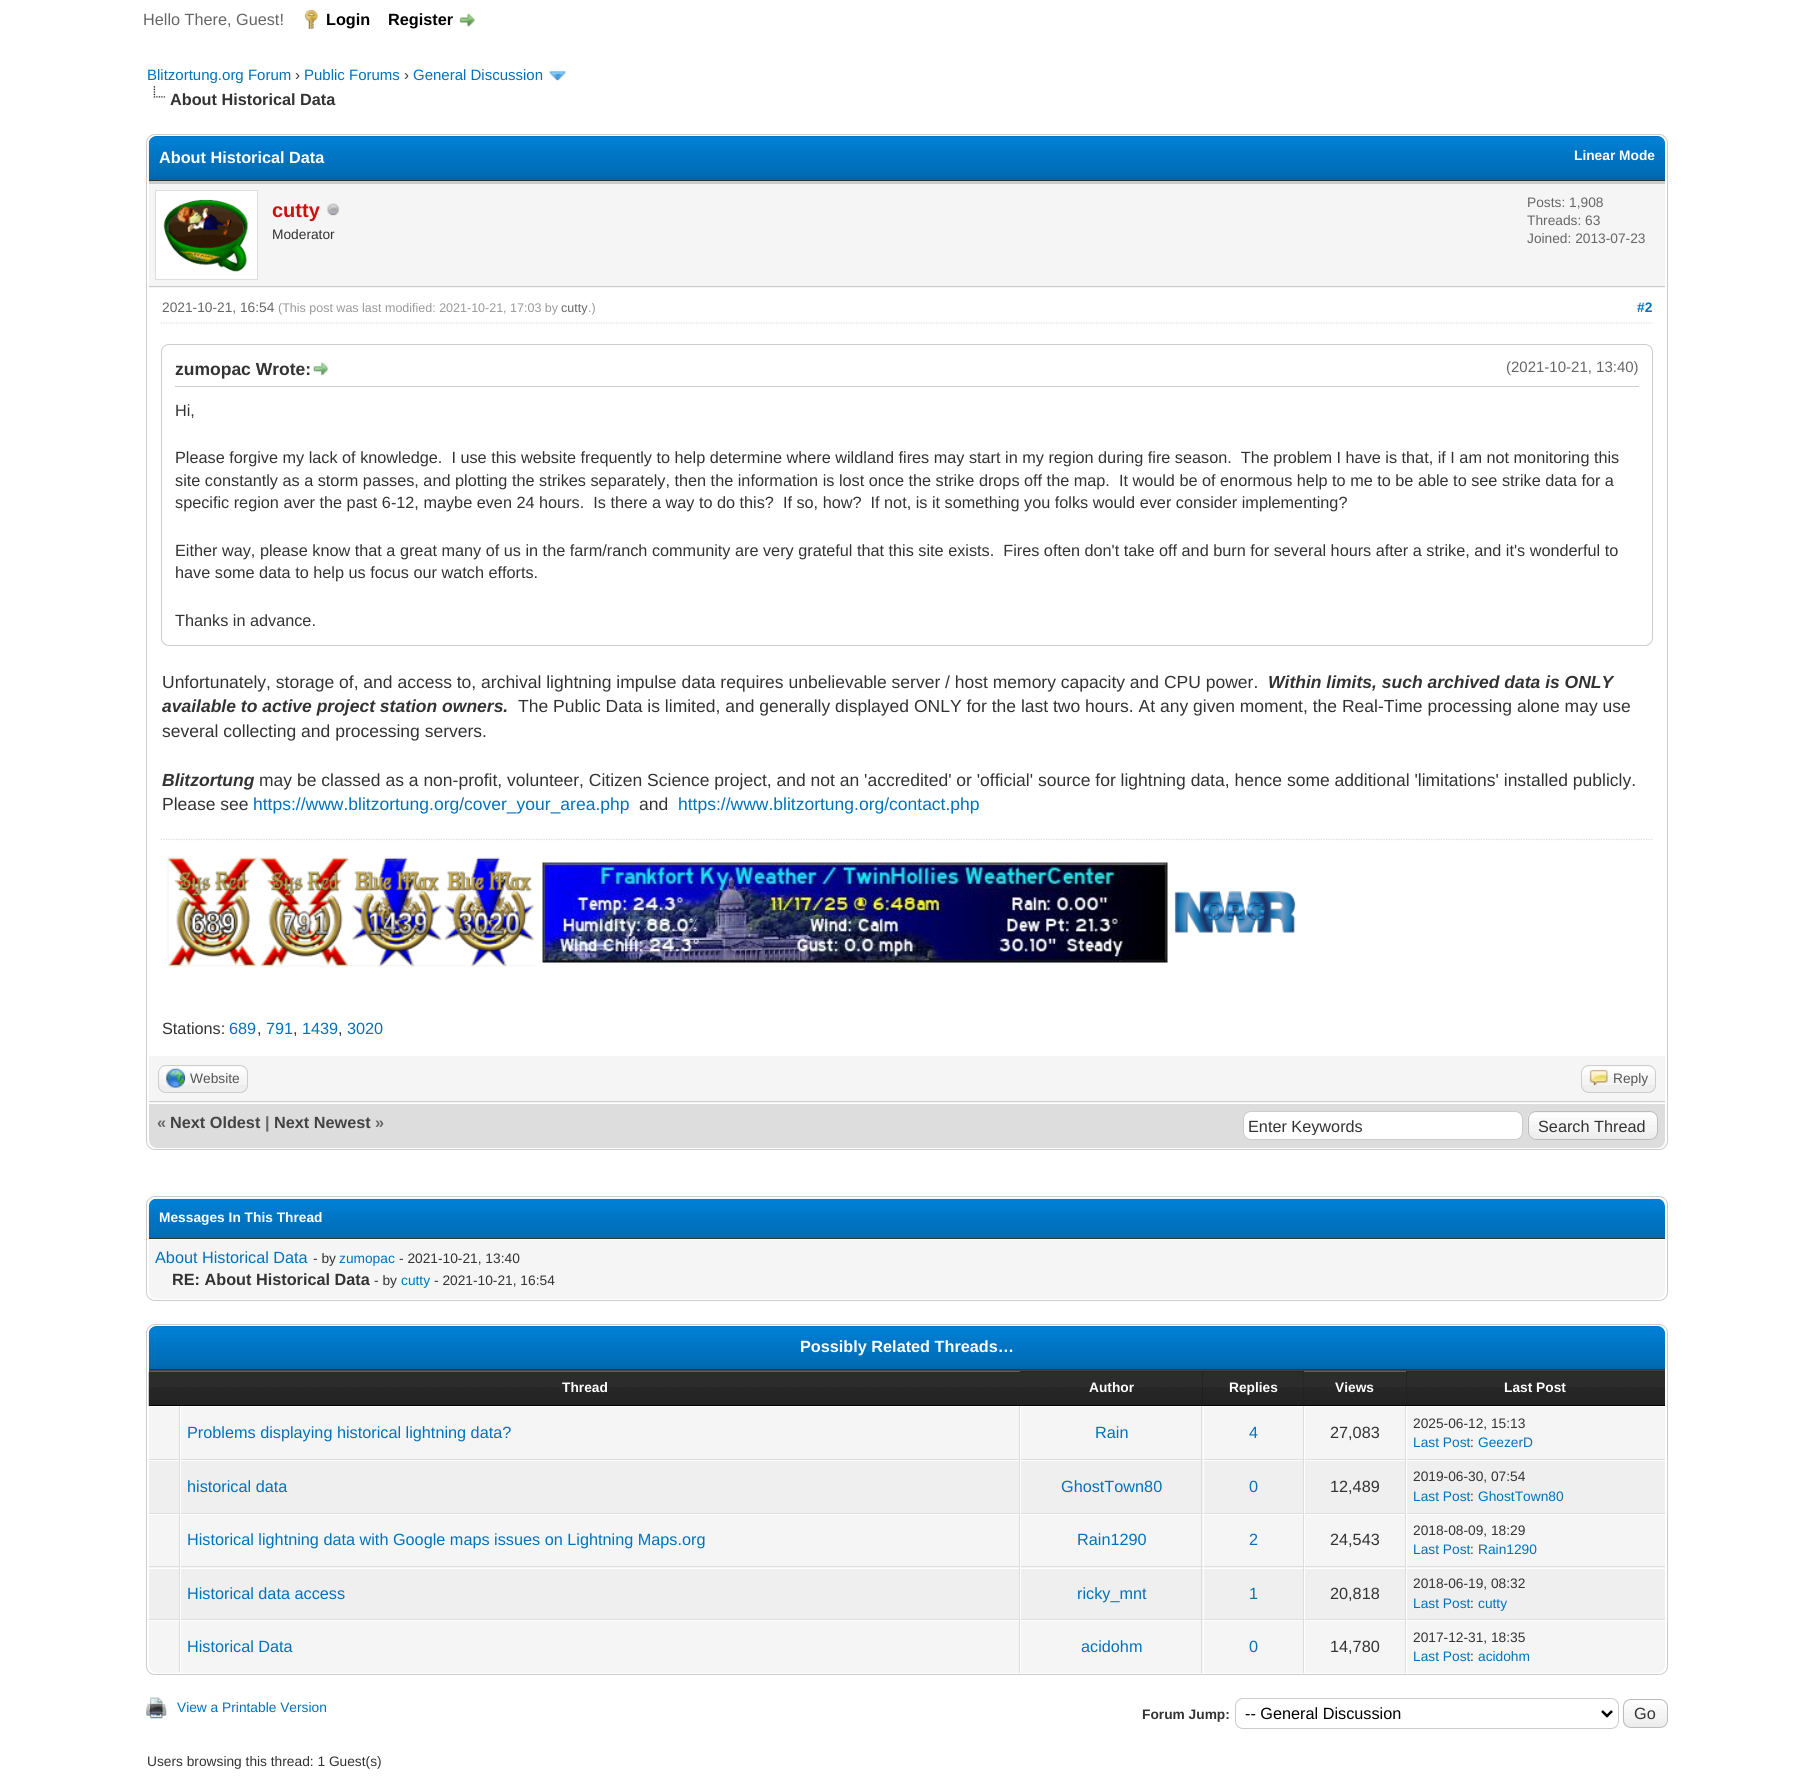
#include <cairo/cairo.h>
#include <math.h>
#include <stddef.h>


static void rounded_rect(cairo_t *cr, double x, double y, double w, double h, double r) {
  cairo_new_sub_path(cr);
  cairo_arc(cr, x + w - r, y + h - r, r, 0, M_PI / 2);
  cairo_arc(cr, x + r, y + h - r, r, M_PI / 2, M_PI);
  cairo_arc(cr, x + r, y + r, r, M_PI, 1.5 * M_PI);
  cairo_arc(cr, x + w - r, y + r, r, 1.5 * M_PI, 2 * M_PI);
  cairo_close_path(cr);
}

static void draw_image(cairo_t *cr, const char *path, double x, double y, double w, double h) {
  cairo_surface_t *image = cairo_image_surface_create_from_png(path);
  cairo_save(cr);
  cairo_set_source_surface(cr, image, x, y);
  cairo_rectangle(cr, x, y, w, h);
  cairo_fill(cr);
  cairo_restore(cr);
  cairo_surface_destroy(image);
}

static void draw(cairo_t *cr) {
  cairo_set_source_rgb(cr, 1, 1, 1);
  cairo_paint(cr);
  draw_image(cr, "images/1.png", 304, 10, 14, 19);
  draw_image(cr, "images/2.png", 459, 13, 17, 14);
  draw_image(cr, "images/3.png", 548, 71, 19, 10);
  draw_image(cr, "images/4.png", 153, 86, 12, 12);
  rounded_rect(cr, 146.5, 134.5, 1521, 1015, 8.5);
  cairo_set_source_rgb(cr, 204 / 255.0, 204 / 255.0, 204 / 255.0);
  cairo_set_line_width(cr, 1);
  cairo_stroke(cr);
  cairo_set_source_rgb(cr, 0, 102 / 255.0, 162 / 255.0);
  cairo_new_path(cr);
  cairo_move_to(cr, 157, 136);
  cairo_line_to(cr, 1657, 136);
  cairo_curve_to(cr, 1661.5, 136, 1665, 139.5, 1665, 144);
  cairo_line_to(cr, 1665, 181);
  cairo_line_to(cr, 149, 181);
  cairo_line_to(cr, 149, 144);
  cairo_curve_to(cr, 149, 139.5, 152.5, 136, 157, 136);
  cairo_close_path(cr);
  cairo_fill(cr);
  draw_image(cr, "images/5.png", 148, 136, 1517, 45);
  cairo_set_source_rgb(cr, 38 / 255.0, 60 / 255.0, 48 / 255.0);
  cairo_rectangle(cr, 149, 180, 1516, 1);
  cairo_fill(cr);
  cairo_set_source_rgb(cr, 245 / 255.0, 245 / 255.0, 245 / 255.0);
  cairo_rectangle(cr, 149, 184, 1516, 104);
  cairo_fill(cr);
  cairo_set_source_rgb(cr, 204 / 255.0, 204 / 255.0, 204 / 255.0);
  cairo_rectangle(cr, 149, 181, 1516, 3);
  cairo_fill(cr);
  cairo_rectangle(cr, 149, 286, 1516, 1);
  cairo_fill(cr);
  cairo_set_source_rgb(cr, 1, 1, 1);
  cairo_rectangle(cr, 155.5, 190.5, 102, 89);
  cairo_fill_preserve(cr);
  cairo_set_source_rgb(cr, 221 / 255.0, 221 / 255.0, 221 / 255.0);
  cairo_stroke(cr);
  draw_image(cr, "images/6.png", 163, 199, 85, 73);
  draw_image(cr, "images/7.png", 327, 203, 12, 13);
  cairo_new_path(cr);
  cairo_move_to(cr, 161, 323);
  cairo_line_to(cr, 1652.5, 323);
  cairo_set_line_width(cr, 1.2);
  cairo_set_dash(cr, (double[]){1.25, 1.25}, 2, 0);
  cairo_stroke(cr);
  rounded_rect(cr, 161.5, 344.5, 1491, 301, 7.5);
  cairo_set_source_rgb(cr, 204 / 255.0, 204 / 255.0, 204 / 255.0);
  cairo_set_line_width(cr, 1);
  cairo_set_dash(cr, NULL, 0, 0);
  cairo_stroke(cr);
  cairo_rectangle(cr, 175, 386, 1464, 1);
  cairo_fill(cr);
  draw_image(cr, "images/8.png", 313, 362, 15, 14);
  cairo_new_path(cr);
  cairo_move_to(cr, 161, 839.5);
  cairo_line_to(cr, 1652.5, 839.5);
  cairo_set_source_rgb(cr, 221 / 255.0, 221 / 255.0, 221 / 255.0);
  cairo_set_line_width(cr, 1.2);
  cairo_set_dash(cr, (double[]){1.25, 1.25}, 2, 0);
  cairo_stroke(cr);
  draw_image(cr, "images/9.png", 167, 857, 368, 110);
  draw_image(cr, "images/10.png", 542, 862, 626, 101);
  draw_image(cr, "images/11.png", 1174, 891, 122, 42);
  cairo_set_source_rgb(cr, 245 / 255.0, 245 / 255.0, 245 / 255.0);
  cairo_rectangle(cr, 149, 1056, 1516, 47);
  cairo_fill(cr);
  cairo_set_source_rgb(cr, 204 / 255.0, 204 / 255.0, 204 / 255.0);
  cairo_rectangle(cr, 149, 1101, 1516, 1);
  cairo_fill(cr);
  cairo_set_source_rgb(cr, 238 / 255.0, 238 / 255.0, 238 / 255.0);
  rounded_rect(cr, 158, 1065, 90, 28, 8);
  cairo_fill(cr);
  draw_image(cr, "images/12.png", 158, 1066, 89, 19);
  rounded_rect(cr, 158.5, 1065.5, 89, 27, 7.5);
  cairo_set_source_rgb(cr, 204 / 255.0, 204 / 255.0, 204 / 255.0);
  cairo_set_line_width(cr, 1);
  cairo_set_dash(cr, NULL, 0, 0);
  cairo_stroke(cr);
  draw_image(cr, "images/13.png", 166, 1068, 19, 20);
  cairo_set_source_rgb(cr, 238 / 255.0, 238 / 255.0, 238 / 255.0);
  rounded_rect(cr, 1581, 1065, 75, 28, 8);
  cairo_fill(cr);
  draw_image(cr, "images/14.png", 1581, 1066, 75, 19);
  rounded_rect(cr, 1581.5, 1065.5, 74, 27, 7.5);
  cairo_set_source_rgb(cr, 204 / 255.0, 204 / 255.0, 204 / 255.0);
  cairo_stroke(cr);
  draw_image(cr, "images/15.png", 1589, 1069, 19, 17);
  cairo_set_source_rgb(cr, 221 / 255.0, 221 / 255.0, 221 / 255.0);
  cairo_new_path(cr);
  cairo_move_to(cr, 149, 1103);
  cairo_line_to(cr, 1665, 1103);
  cairo_line_to(cr, 1665, 1140);
  cairo_curve_to(cr, 1665, 1144.5, 1661.5, 1148, 1657, 1148);
  cairo_line_to(cr, 157, 1148);
  cairo_curve_to(cr, 152.5, 1148, 149, 1144.5, 149, 1140);
  cairo_close_path(cr);
  cairo_fill(cr);
  cairo_set_source_rgb(cr, 1, 1, 1);
  cairo_rectangle(cr, 149, 1103, 1516, 1);
  cairo_fill(cr);
  rounded_rect(cr, 1243.5, 1111.5, 279, 28, 7.5);
  cairo_fill_preserve(cr);
  cairo_set_source_rgb(cr, 204 / 255.0, 204 / 255.0, 204 / 255.0);
  cairo_stroke(cr);
  cairo_set_source_rgb(cr, 238 / 255.0, 238 / 255.0, 238 / 255.0);
  rounded_rect(cr, 1528, 1111, 130, 29, 8);
  cairo_fill(cr);
  draw_image(cr, "images/16.png", 1527, 1112, 130, 28);
  rounded_rect(cr, 1528.5, 1111.5, 129, 28, 7.5);
  cairo_set_source_rgb(cr, 187 / 255.0, 187 / 255.0, 187 / 255.0);
  cairo_stroke(cr);
  rounded_rect(cr, 146.5, 1196.5, 1521, 104, 8.5);
  cairo_set_source_rgb(cr, 204 / 255.0, 204 / 255.0, 204 / 255.0);
  cairo_stroke(cr);
  draw_image(cr, "images/17.png", 148, 1198, 1517, 41);
  cairo_set_source_rgb(cr, 38 / 255.0, 60 / 255.0, 48 / 255.0);
  cairo_rectangle(cr, 149, 1238, 1516, 1);
  cairo_fill(cr);
  cairo_set_source_rgb(cr, 245 / 255.0, 245 / 255.0, 245 / 255.0);
  cairo_new_path(cr);
  cairo_move_to(cr, 149, 1239);
  cairo_line_to(cr, 1665, 1239);
  cairo_line_to(cr, 1665, 1291);
  cairo_curve_to(cr, 1665, 1295.5, 1661.5, 1299, 1657, 1299);
  cairo_line_to(cr, 157, 1299);
  cairo_curve_to(cr, 152.5, 1299, 149, 1295.5, 149, 1291);
  cairo_close_path(cr);
  cairo_fill(cr);
  cairo_set_source_rgb(cr, 1, 1, 1);
  cairo_rectangle(cr, 149, 1239, 1516, 1);
  cairo_fill(cr);
  rounded_rect(cr, 146.5, 1324.5, 1521, 350, 8.5);
  cairo_set_source_rgb(cr, 204 / 255.0, 204 / 255.0, 204 / 255.0);
  cairo_stroke(cr);
  cairo_set_source_rgb(cr, 0, 102 / 255.0, 162 / 255.0);
  cairo_new_path(cr);
  cairo_move_to(cr, 157, 1326);
  cairo_line_to(cr, 1657, 1326);
  cairo_curve_to(cr, 1661.5, 1326, 1665, 1329.5, 1665, 1334);
  cairo_line_to(cr, 1665, 1370);
  cairo_line_to(cr, 149, 1370);
  cairo_line_to(cr, 149, 1334);
  cairo_curve_to(cr, 149, 1329.5, 152.5, 1326, 157, 1326);
  cairo_close_path(cr);
  cairo_fill(cr);
  draw_image(cr, "images/18.png", 148, 1326, 1517, 44);
  cairo_set_source_rgb(cr, 38 / 255.0, 60 / 255.0, 48 / 255.0);
  cairo_rectangle(cr, 149, 1369, 1516, 1);
  cairo_fill(cr);
  draw_image(cr, "images/19.png", 148, 1371, 872, 36);
  cairo_set_source_rgb(cr, 68 / 255.0, 68 / 255.0, 68 / 255.0);
  cairo_rectangle(cr, 149, 1370, 1516, 1);
  cairo_fill(cr);
  cairo_set_source_rgb(cr, 0, 0, 0);
  cairo_rectangle(cr, 149, 1405, 1054, 1);
  cairo_fill(cr);
  cairo_set_source_rgb(cr, 15 / 255.0, 15 / 255.0, 15 / 255.0);
  cairo_rectangle(cr, 1020, 1371, 284, 34);
  cairo_fill(cr);
  draw_image(cr, "images/20.png", 1020, 1371, 183, 34);
  draw_image(cr, "images/21.png", 1202, 1371, 102, 35);
  cairo_set_source_rgb(cr, 0, 0, 0);
  cairo_rectangle(cr, 1203, 1405, 101, 1);
  cairo_fill(cr);
  draw_image(cr, "images/22.png", 1303, 1371, 103, 35);
  cairo_rectangle(cr, 1304, 1405, 361, 1);
  cairo_fill(cr);
  cairo_set_source_rgb(cr, 15 / 255.0, 15 / 255.0, 15 / 255.0);
  cairo_rectangle(cr, 1406, 1371, 259, 34);
  cairo_fill(cr);
  draw_image(cr, "images/23.png", 1406, 1371, 259, 34);
  cairo_set_source_rgb(cr, 245 / 255.0, 245 / 255.0, 245 / 255.0);
  cairo_rectangle(cr, 149, 1407, 30, 52);
  cairo_fill(cr);
  cairo_set_source_rgb(cr, 1, 1, 1);
  cairo_rectangle(cr, 149, 1406, 871, 1);
  cairo_fill(cr);
  cairo_set_source_rgb(cr, 221 / 255.0, 221 / 255.0, 221 / 255.0);
  cairo_rectangle(cr, 179, 1406, 1, 214);
  cairo_fill(cr);
  cairo_rectangle(cr, 149, 1459, 31, 1);
  cairo_fill(cr);
  cairo_set_source_rgb(cr, 245 / 255.0, 245 / 255.0, 245 / 255.0);
  cairo_rectangle(cr, 1407, 1407, 258, 52);
  cairo_fill(cr);
  cairo_set_source_rgb(cr, 221 / 255.0, 221 / 255.0, 221 / 255.0);
  cairo_rectangle(cr, 1405, 1406, 1, 267);
  cairo_fill(cr);
  cairo_rectangle(cr, 1304, 1459, 361, 1);
  cairo_fill(cr);
  cairo_set_source_rgb(cr, 1, 1, 1);
  cairo_rectangle(cr, 1406, 1459, 1, 1);
  cairo_fill(cr);
  cairo_set_source_rgb(cr, 245 / 255.0, 245 / 255.0, 245 / 255.0);
  cairo_rectangle(cr, 181, 1407, 838, 52);
  cairo_fill(cr);
  cairo_set_source_rgb(cr, 221 / 255.0, 221 / 255.0, 221 / 255.0);
  cairo_rectangle(cr, 1019, 1406, 1, 267);
  cairo_fill(cr);
  cairo_rectangle(cr, 180, 1459, 840, 1);
  cairo_fill(cr);
  cairo_set_source_rgb(cr, 1, 1, 1);
  cairo_rectangle(cr, 180, 1459, 1, 1);
  cairo_fill(cr);
  cairo_set_source_rgb(cr, 245 / 255.0, 245 / 255.0, 245 / 255.0);
  cairo_rectangle(cr, 1021, 1407, 182, 52);
  cairo_fill(cr);
  cairo_set_source_rgb(cr, 221 / 255.0, 221 / 255.0, 221 / 255.0);
  cairo_rectangle(cr, 1201, 1406, 1, 54);
  cairo_fill(cr);
  cairo_rectangle(cr, 1020, 1459, 183, 1);
  cairo_fill(cr);
  cairo_set_source_rgb(cr, 1, 1, 1);
  cairo_rectangle(cr, 1020, 1459, 1, 1);
  cairo_fill(cr);
  cairo_set_source_rgb(cr, 245 / 255.0, 245 / 255.0, 245 / 255.0);
  cairo_rectangle(cr, 1204, 1407, 99, 52);
  cairo_fill(cr);
  cairo_set_source_rgb(cr, 221 / 255.0, 221 / 255.0, 221 / 255.0);
  cairo_rectangle(cr, 1303, 1406, 1, 267);
  cairo_fill(cr);
  cairo_rectangle(cr, 1203, 1459, 101, 1);
  cairo_fill(cr);
  cairo_set_source_rgb(cr, 1, 1, 1);
  cairo_rectangle(cr, 1203, 1459, 1, 1);
  cairo_fill(cr);
  cairo_set_source_rgb(cr, 245 / 255.0, 245 / 255.0, 245 / 255.0);
  cairo_rectangle(cr, 1305, 1407, 100, 52);
  cairo_fill(cr);
  cairo_set_source_rgb(cr, 1, 1, 1);
  cairo_rectangle(cr, 1304, 1459, 1, 1);
  cairo_fill(cr);
  cairo_set_source_rgb(cr, 239 / 255.0, 239 / 255.0, 239 / 255.0);
  cairo_rectangle(cr, 149, 1461, 30, 52);
  cairo_fill(cr);
  cairo_set_source_rgb(cr, 221 / 255.0, 221 / 255.0, 221 / 255.0);
  cairo_rectangle(cr, 149, 1513, 871, 1);
  cairo_fill(cr);
  cairo_set_source_rgb(cr, 239 / 255.0, 239 / 255.0, 239 / 255.0);
  cairo_rectangle(cr, 1407, 1461, 258, 52);
  cairo_fill(cr);
  cairo_rectangle(cr, 1021, 1461, 182, 52);
  cairo_fill(cr);
  cairo_set_source_rgb(cr, 221 / 255.0, 221 / 255.0, 221 / 255.0);
  cairo_rectangle(cr, 1201, 1460, 1, 54);
  cairo_fill(cr);
  cairo_rectangle(cr, 1020, 1513, 645, 1);
  cairo_fill(cr);
  cairo_set_source_rgb(cr, 1, 1, 1);
  cairo_rectangle(cr, 1406, 1513, 1, 1);
  cairo_fill(cr);
  cairo_set_source_rgb(cr, 239 / 255.0, 239 / 255.0, 239 / 255.0);
  cairo_rectangle(cr, 181, 1461, 838, 52);
  cairo_fill(cr);
  cairo_set_source_rgb(cr, 1, 1, 1);
  cairo_rectangle(cr, 180, 1513, 1, 1);
  cairo_fill(cr);
  cairo_rectangle(cr, 1020, 1513, 1, 1);
  cairo_fill(cr);
  cairo_set_source_rgb(cr, 239 / 255.0, 239 / 255.0, 239 / 255.0);
  cairo_rectangle(cr, 1204, 1461, 99, 52);
  cairo_fill(cr);
  cairo_set_source_rgb(cr, 1, 1, 1);
  cairo_rectangle(cr, 1203, 1513, 1, 1);
  cairo_fill(cr);
  cairo_set_source_rgb(cr, 239 / 255.0, 239 / 255.0, 239 / 255.0);
  cairo_rectangle(cr, 1305, 1461, 100, 52);
  cairo_fill(cr);
  cairo_set_source_rgb(cr, 1, 1, 1);
  cairo_rectangle(cr, 1304, 1513, 1, 1);
  cairo_fill(cr);
  cairo_set_source_rgb(cr, 245 / 255.0, 245 / 255.0, 245 / 255.0);
  cairo_rectangle(cr, 149, 1515, 30, 53);
  cairo_fill(cr);
  cairo_set_source_rgb(cr, 221 / 255.0, 221 / 255.0, 221 / 255.0);
  cairo_rectangle(cr, 149, 1566, 31, 1);
  cairo_fill(cr);
  cairo_set_source_rgb(cr, 245 / 255.0, 245 / 255.0, 245 / 255.0);
  cairo_rectangle(cr, 181, 1515, 838, 53);
  cairo_fill(cr);
  cairo_set_source_rgb(cr, 221 / 255.0, 221 / 255.0, 221 / 255.0);
  cairo_rectangle(cr, 180, 1566, 840, 1);
  cairo_fill(cr);
  cairo_set_source_rgb(cr, 1, 1, 1);
  cairo_rectangle(cr, 180, 1566, 1, 2);
  cairo_fill(cr);
  cairo_set_source_rgb(cr, 245 / 255.0, 245 / 255.0, 245 / 255.0);
  cairo_rectangle(cr, 1021, 1515, 182, 53);
  cairo_fill(cr);
  cairo_set_source_rgb(cr, 221 / 255.0, 221 / 255.0, 221 / 255.0);
  cairo_rectangle(cr, 1201, 1514, 1, 54);
  cairo_fill(cr);
  cairo_rectangle(cr, 1020, 1566, 183, 1);
  cairo_fill(cr);
  cairo_set_source_rgb(cr, 1, 1, 1);
  cairo_rectangle(cr, 1020, 1566, 1, 2);
  cairo_fill(cr);
  cairo_set_source_rgb(cr, 245 / 255.0, 245 / 255.0, 245 / 255.0);
  cairo_rectangle(cr, 1204, 1515, 99, 53);
  cairo_fill(cr);
  cairo_set_source_rgb(cr, 221 / 255.0, 221 / 255.0, 221 / 255.0);
  cairo_rectangle(cr, 1203, 1566, 101, 1);
  cairo_fill(cr);
  cairo_set_source_rgb(cr, 1, 1, 1);
  cairo_rectangle(cr, 1203, 1566, 1, 2);
  cairo_fill(cr);
  cairo_set_source_rgb(cr, 245 / 255.0, 245 / 255.0, 245 / 255.0);
  cairo_rectangle(cr, 1305, 1515, 100, 53);
  cairo_fill(cr);
  cairo_set_source_rgb(cr, 221 / 255.0, 221 / 255.0, 221 / 255.0);
  cairo_rectangle(cr, 1304, 1566, 102, 1);
  cairo_fill(cr);
  cairo_set_source_rgb(cr, 1, 1, 1);
  cairo_rectangle(cr, 1304, 1566, 1, 2);
  cairo_fill(cr);
  cairo_set_source_rgb(cr, 245 / 255.0, 245 / 255.0, 245 / 255.0);
  cairo_rectangle(cr, 1407, 1515, 258, 53);
  cairo_fill(cr);
  cairo_set_source_rgb(cr, 221 / 255.0, 221 / 255.0, 221 / 255.0);
  cairo_rectangle(cr, 1406, 1566, 259, 1);
  cairo_fill(cr);
  cairo_set_source_rgb(cr, 1, 1, 1);
  cairo_rectangle(cr, 1406, 1566, 1, 2);
  cairo_fill(cr);
  cairo_set_source_rgb(cr, 239 / 255.0, 239 / 255.0, 239 / 255.0);
  cairo_rectangle(cr, 149, 1569, 30, 50);
  cairo_fill(cr);
  cairo_set_source_rgb(cr, 221 / 255.0, 221 / 255.0, 221 / 255.0);
  cairo_rectangle(cr, 149, 1619, 871, 1);
  cairo_fill(cr);
  cairo_set_source_rgb(cr, 239 / 255.0, 239 / 255.0, 239 / 255.0);
  cairo_rectangle(cr, 1407, 1569, 258, 50);
  cairo_fill(cr);
  cairo_rectangle(cr, 1021, 1569, 182, 50);
  cairo_fill(cr);
  cairo_set_source_rgb(cr, 221 / 255.0, 221 / 255.0, 221 / 255.0);
  cairo_rectangle(cr, 1201, 1568, 1, 52);
  cairo_fill(cr);
  cairo_rectangle(cr, 1020, 1619, 645, 1);
  cairo_fill(cr);
  cairo_set_source_rgb(cr, 1, 1, 1);
  cairo_rectangle(cr, 1406, 1619, 1, 1);
  cairo_fill(cr);
  cairo_set_source_rgb(cr, 239 / 255.0, 239 / 255.0, 239 / 255.0);
  cairo_rectangle(cr, 181, 1569, 838, 50);
  cairo_fill(cr);
  cairo_set_source_rgb(cr, 1, 1, 1);
  cairo_rectangle(cr, 180, 1619, 1, 1);
  cairo_fill(cr);
  cairo_rectangle(cr, 1020, 1619, 1, 1);
  cairo_fill(cr);
  cairo_set_source_rgb(cr, 239 / 255.0, 239 / 255.0, 239 / 255.0);
  cairo_rectangle(cr, 1204, 1569, 99, 50);
  cairo_fill(cr);
  cairo_set_source_rgb(cr, 1, 1, 1);
  cairo_rectangle(cr, 1203, 1619, 1, 1);
  cairo_fill(cr);
  cairo_set_source_rgb(cr, 239 / 255.0, 239 / 255.0, 239 / 255.0);
  cairo_rectangle(cr, 1305, 1569, 100, 50);
  cairo_fill(cr);
  cairo_set_source_rgb(cr, 1, 1, 1);
  cairo_rectangle(cr, 1304, 1619, 1, 1);
  cairo_fill(cr);
  cairo_set_source_rgb(cr, 245 / 255.0, 245 / 255.0, 245 / 255.0);
  cairo_new_path(cr);
  cairo_move_to(cr, 149, 1620);
  cairo_line_to(cr, 180, 1620);
  cairo_line_to(cr, 180, 1673);
  cairo_line_to(cr, 157, 1673);
  cairo_curve_to(cr, 152.5, 1673, 149, 1669.5, 149, 1665);
  cairo_close_path(cr);
  cairo_fill(cr);
  cairo_set_source_rgb(cr, 1, 1, 1);
  cairo_new_path(cr);
  cairo_move_to(cr, 149, 1620);
  cairo_line_to(cr, 149, 1621);
  cairo_line_to(cr, 179, 1621);
  cairo_line_to(cr, 180, 1620);
  cairo_close_path(cr);
  cairo_fill(cr);
  cairo_set_source_rgb(cr, 221 / 255.0, 221 / 255.0, 221 / 255.0);
  cairo_new_path(cr);
  cairo_move_to(cr, 180, 1620);
  cairo_line_to(cr, 179, 1621);
  cairo_line_to(cr, 179, 1672);
  cairo_line_to(cr, 180, 1672);
  cairo_close_path(cr);
  cairo_fill(cr);
  cairo_set_source_rgb(cr, 245 / 255.0, 245 / 255.0, 245 / 255.0);
  cairo_rectangle(cr, 181, 1621, 838, 52);
  cairo_fill(cr);
  cairo_rectangle(cr, 1021, 1621, 182, 52);
  cairo_fill(cr);
  cairo_set_source_rgb(cr, 221 / 255.0, 221 / 255.0, 221 / 255.0);
  cairo_rectangle(cr, 1201, 1620, 1, 53);
  cairo_fill(cr);
  cairo_set_source_rgb(cr, 245 / 255.0, 245 / 255.0, 245 / 255.0);
  cairo_rectangle(cr, 1204, 1621, 99, 52);
  cairo_fill(cr);
  cairo_rectangle(cr, 1305, 1621, 100, 52);
  cairo_fill(cr);
  cairo_new_path(cr);
  cairo_move_to(cr, 1406, 1620);
  cairo_line_to(cr, 1665, 1620);
  cairo_line_to(cr, 1665, 1665);
  cairo_curve_to(cr, 1665, 1669.5, 1661.5, 1673, 1657, 1673);
  cairo_line_to(cr, 1406, 1673);
  cairo_close_path(cr);
  cairo_fill(cr);
  cairo_set_source_rgb(cr, 1, 1, 1);
  cairo_rectangle(cr, 1406, 1620, 259, 1);
  cairo_fill(cr);
  cairo_rectangle(cr, 1406, 1620, 1, 53);
  cairo_fill(cr);
  draw_image(cr, "images/24.png", 146, 1697, 21, 22);
  rounded_rect(cr, 1235.5, 1698.5, 383, 30, 7.5);
  cairo_set_source_rgb(cr, 204 / 255.0, 204 / 255.0, 204 / 255.0);
  cairo_stroke(cr);
  cairo_new_path(cr);
  cairo_move_to(cr, 1602, 1711);
  cairo_line_to(cr, 1607, 1716);
  cairo_line_to(cr, 1612, 1711);
  cairo_set_source_rgb(cr, 0, 0, 0);
  cairo_set_line_width(cr, 2.5);
  cairo_stroke(cr);
  draw_image(cr, "images/25.png", 1622, 1700, 45, 27);
  rounded_rect(cr, 1623.5, 1699.5, 44, 28, 7.5);
  cairo_set_source_rgb(cr, 187 / 255.0, 187 / 255.0, 187 / 255.0);
  cairo_set_line_width(cr, 1);
  cairo_stroke(cr);
  cairo_select_font_face(cr, "Liberation Sans", CAIRO_FONT_SLANT_NORMAL, CAIRO_FONT_WEIGHT_NORMAL);
  cairo_set_font_size(cr, 16.25);
  cairo_set_source_rgb(cr, 102 / 255.0, 102 / 255.0, 102 / 255.0);
  cairo_move_to(cr, 143, 25);
  cairo_show_text(cr, "Hello There, Guest!");
  cairo_select_font_face(cr, "Liberation Sans", CAIRO_FONT_SLANT_NORMAL, CAIRO_FONT_WEIGHT_BOLD);
  cairo_set_source_rgb(cr, 0, 0, 0);
  cairo_move_to(cr, 326, 25);
  cairo_show_text(cr, "Login");
  cairo_move_to(cr, 388, 25);
  cairo_show_text(cr, "Register");
  cairo_select_font_face(cr, "Liberation Sans", CAIRO_FONT_SLANT_NORMAL, CAIRO_FONT_WEIGHT_NORMAL);
  cairo_set_font_size(cr, 15);
  cairo_set_source_rgb(cr, 0, 114 / 255.0, 188 / 255.0);
  cairo_move_to(cr, 147, 80);
  cairo_show_text(cr, "Blitzortung.org Forum");
  cairo_set_source_rgb(cr, 51 / 255.0, 51 / 255.0, 51 / 255.0);
  cairo_move_to(cr, 295, 80);
  cairo_show_text(cr, "›");
  cairo_set_source_rgb(cr, 0, 114 / 255.0, 188 / 255.0);
  cairo_move_to(cr, 304, 80);
  cairo_show_text(cr, "Public Forums");
  cairo_set_source_rgb(cr, 51 / 255.0, 51 / 255.0, 51 / 255.0);
  cairo_move_to(cr, 404, 80);
  cairo_show_text(cr, "›");
  cairo_set_source_rgb(cr, 0, 114 / 255.0, 188 / 255.0);
  cairo_move_to(cr, 413, 80);
  cairo_show_text(cr, "General Discussion");
  cairo_select_font_face(cr, "Liberation Sans", CAIRO_FONT_SLANT_NORMAL, CAIRO_FONT_WEIGHT_BOLD);
  cairo_set_font_size(cr, 16.25);
  cairo_set_source_rgb(cr, 51 / 255.0, 51 / 255.0, 51 / 255.0);
  cairo_move_to(cr, 170, 105);
  cairo_show_text(cr, "About Historical Data");
  cairo_set_source_rgb(cr, 1, 1, 1);
  cairo_move_to(cr, 159, 163);
  cairo_show_text(cr, "About Historical Data");
  cairo_set_font_size(cr, 13.75);
  cairo_move_to(cr, 1574, 160);
  cairo_show_text(cr, "Linear Mode");
  cairo_set_font_size(cr, 20);
  cairo_set_source_rgb(cr, 204 / 255.0, 17 / 255.0, 17 / 255.0);
  cairo_move_to(cr, 272, 217);
  cairo_show_text(cr, "cutty");
  cairo_select_font_face(cr, "Liberation Sans", CAIRO_FONT_SLANT_NORMAL, CAIRO_FONT_WEIGHT_NORMAL);
  cairo_set_font_size(cr, 13.75);
  cairo_set_source_rgb(cr, 51 / 255.0, 51 / 255.0, 51 / 255.0);
  cairo_move_to(cr, 272, 239);
  cairo_show_text(cr, "Moderator");
  cairo_set_source_rgb(cr, 102 / 255.0, 102 / 255.0, 102 / 255.0);
  cairo_move_to(cr, 1527, 207);
  cairo_show_text(cr, "Posts: 1,908");
  cairo_move_to(cr, 1527, 225);
  cairo_show_text(cr, "Threads: 63");
  cairo_move_to(cr, 1527, 243);
  cairo_show_text(cr, "Joined: 2013-07-23");
  cairo_move_to(cr, 162, 312);
  cairo_show_text(cr, "2021-10-21, 16:54");
  cairo_set_font_size(cr, 12.5);
  cairo_set_source_rgb(cr, 153 / 255.0, 153 / 255.0, 153 / 255.0);
  cairo_move_to(cr, 278, 312);
  cairo_show_text(cr, "(This post was last modified: 2021-10-21, 17:03 by");
  cairo_set_source_rgb(cr, 102 / 255.0, 102 / 255.0, 102 / 255.0);
  cairo_move_to(cr, 561, 312);
  cairo_show_text(cr, "cutty");
  cairo_set_source_rgb(cr, 153 / 255.0, 153 / 255.0, 153 / 255.0);
  cairo_move_to(cr, 588, 312);
  cairo_show_text(cr, ".)");
  cairo_select_font_face(cr, "Liberation Sans", CAIRO_FONT_SLANT_NORMAL, CAIRO_FONT_WEIGHT_BOLD);
  cairo_set_font_size(cr, 13.75);
  cairo_set_source_rgb(cr, 0, 114 / 255.0, 188 / 255.0);
  cairo_move_to(cr, 1637, 312);
  cairo_show_text(cr, "#2");
  cairo_set_font_size(cr, 17.5);
  cairo_set_source_rgb(cr, 51 / 255.0, 51 / 255.0, 51 / 255.0);
  cairo_move_to(cr, 175, 375);
  cairo_show_text(cr, "zumopac Wrote:");
  cairo_select_font_face(cr, "Liberation Sans", CAIRO_FONT_SLANT_NORMAL, CAIRO_FONT_WEIGHT_NORMAL);
  cairo_set_font_size(cr, 15);
  cairo_set_source_rgb(cr, 102 / 255.0, 102 / 255.0, 102 / 255.0);
  cairo_move_to(cr, 1506, 372);
  cairo_show_text(cr, "(2021-10-21, 13:40)");
  cairo_set_font_size(cr, 16.25);
  cairo_set_source_rgb(cr, 51 / 255.0, 51 / 255.0, 51 / 255.0);
  cairo_move_to(cr, 175, 416);
  cairo_show_text(cr, "Hi,");
  cairo_move_to(cr, 175, 463);
  cairo_show_text(cr, "Please forgive my lack of knowledge.  I use this website frequently to help determine where wildland fires may start in my region during fire season.  The problem I have is that, if I am not monitoring this");
  cairo_move_to(cr, 175, 486);
  cairo_show_text(cr, "site constantly as a storm passes, and plotting the strikes separately, then the information is lost once the strike drops off the map.  It would be of enormous help to me to be able to see strike data for a");
  cairo_move_to(cr, 175, 508);
  cairo_show_text(cr, "specific region aver the past 6-12, maybe even 24 hours.  Is there a way to do this?  If so, how?  If not, is it something you folks would ever consider implementing?");
  cairo_move_to(cr, 175, 556);
  cairo_show_text(cr, "Either way, please know that a great many of us in the farm/ranch community are very grateful that this site exists.  Fires often don't take off and burn for several hours after a strike, and it's wonderful to");
  cairo_move_to(cr, 175, 578);
  cairo_show_text(cr, "have some data to help us focus our watch efforts.");
  cairo_move_to(cr, 175, 626);
  cairo_show_text(cr, "Thanks in advance.");
  cairo_set_font_size(cr, 17.5);
  cairo_move_to(cr, 162, 688);
  cairo_show_text(cr, "Unfortunately, storage of, and access to, archival lightning impulse data requires unbelievable server / host memory capacity and CPU power.");
  cairo_select_font_face(cr, "Liberation Sans", CAIRO_FONT_SLANT_ITALIC, CAIRO_FONT_WEIGHT_BOLD);
  cairo_move_to(cr, 1268, 688);
  cairo_show_text(cr, "Within limits, such archived data is ONLY");
  cairo_move_to(cr, 162, 712);
  cairo_show_text(cr, "available to active project station owners.");
  cairo_select_font_face(cr, "Liberation Sans", CAIRO_FONT_SLANT_NORMAL, CAIRO_FONT_WEIGHT_NORMAL);
  cairo_move_to(cr, 518, 712);
  cairo_show_text(cr, "The Public Data is limited, and generally displayed ONLY for the last two hours. At any given moment, the Real-Time processing alone may use");
  cairo_move_to(cr, 162, 737);
  cairo_show_text(cr, "several collecting and processing servers.");
  cairo_select_font_face(cr, "Liberation Sans", CAIRO_FONT_SLANT_ITALIC, CAIRO_FONT_WEIGHT_BOLD);
  cairo_move_to(cr, 162, 786);
  cairo_show_text(cr, "Blitzortung");
  cairo_select_font_face(cr, "Liberation Sans", CAIRO_FONT_SLANT_NORMAL, CAIRO_FONT_WEIGHT_NORMAL);
  cairo_move_to(cr, 259, 786);
  cairo_show_text(cr, "may be classed as a non-profit, volunteer, Citizen Science project, and not an 'accredited' or 'official' source for lightning data, hence some additional 'limitations' installed publicly.");
  cairo_move_to(cr, 162, 810);
  cairo_show_text(cr, "Please see");
  cairo_set_source_rgb(cr, 0, 114 / 255.0, 188 / 255.0);
  cairo_move_to(cr, 253, 810);
  cairo_show_text(cr, "https://www.blitzortung.org/cover_your_area.php");
  cairo_set_source_rgb(cr, 51 / 255.0, 51 / 255.0, 51 / 255.0);
  cairo_move_to(cr, 639, 810);
  cairo_show_text(cr, "and");
  cairo_set_source_rgb(cr, 0, 114 / 255.0, 188 / 255.0);
  cairo_move_to(cr, 678, 810);
  cairo_show_text(cr, "https://www.blitzortung.org/contact.php");
  cairo_set_font_size(cr, 16.25);
  cairo_set_source_rgb(cr, 51 / 255.0, 51 / 255.0, 51 / 255.0);
  cairo_move_to(cr, 162, 1034);
  cairo_show_text(cr, "Stations:");
  cairo_set_source_rgb(cr, 0, 114 / 255.0, 188 / 255.0);
  cairo_move_to(cr, 229, 1034);
  cairo_show_text(cr, "689");
  cairo_set_source_rgb(cr, 51 / 255.0, 51 / 255.0, 51 / 255.0);
  cairo_move_to(cr, 257, 1034);
  cairo_show_text(cr, ",");
  cairo_set_source_rgb(cr, 0, 114 / 255.0, 188 / 255.0);
  cairo_move_to(cr, 266, 1034);
  cairo_show_text(cr, "791");
  cairo_set_source_rgb(cr, 51 / 255.0, 51 / 255.0, 51 / 255.0);
  cairo_move_to(cr, 293, 1034);
  cairo_show_text(cr, ",");
  cairo_set_source_rgb(cr, 0, 114 / 255.0, 188 / 255.0);
  cairo_move_to(cr, 302, 1034);
  cairo_show_text(cr, "1439");
  cairo_set_source_rgb(cr, 51 / 255.0, 51 / 255.0, 51 / 255.0);
  cairo_move_to(cr, 338, 1034);
  cairo_show_text(cr, ",");
  cairo_set_source_rgb(cr, 0, 114 / 255.0, 188 / 255.0);
  cairo_move_to(cr, 347, 1034);
  cairo_show_text(cr, "3020");
  cairo_set_font_size(cr, 13.75);
  cairo_set_source_rgb(cr, 85 / 255.0, 85 / 255.0, 85 / 255.0);
  cairo_move_to(cr, 190, 1083);
  cairo_show_text(cr, "Website");
  cairo_move_to(cr, 1613, 1083);
  cairo_show_text(cr, "Reply");
  cairo_select_font_face(cr, "Liberation Sans", CAIRO_FONT_SLANT_NORMAL, CAIRO_FONT_WEIGHT_BOLD);
  cairo_set_font_size(cr, 16.25);
  cairo_set_source_rgb(cr, 102 / 255.0, 102 / 255.0, 102 / 255.0);
  cairo_move_to(cr, 157, 1128);
  cairo_show_text(cr, "«");
  cairo_set_source_rgb(cr, 68 / 255.0, 68 / 255.0, 68 / 255.0);
  cairo_move_to(cr, 170, 1128);
  cairo_show_text(cr, "Next Oldest");
  cairo_set_source_rgb(cr, 102 / 255.0, 102 / 255.0, 102 / 255.0);
  cairo_move_to(cr, 265, 1128);
  cairo_show_text(cr, "|");
  cairo_set_source_rgb(cr, 68 / 255.0, 68 / 255.0, 68 / 255.0);
  cairo_move_to(cr, 274, 1128);
  cairo_show_text(cr, "Next Newest");
  cairo_set_source_rgb(cr, 102 / 255.0, 102 / 255.0, 102 / 255.0);
  cairo_move_to(cr, 375, 1128);
  cairo_show_text(cr, "»");
  cairo_save(cr);
  cairo_rectangle(cr, 1248, 1116, 270, 19);
  cairo_clip(cr);
  cairo_select_font_face(cr, "Liberation Sans", CAIRO_FONT_SLANT_NORMAL, CAIRO_FONT_WEIGHT_NORMAL);
  cairo_set_source_rgb(cr, 51 / 255.0, 51 / 255.0, 51 / 255.0);
  cairo_move_to(cr, 1248, 1132);
  cairo_show_text(cr, "Enter Keywords");
  cairo_restore(cr);
  cairo_select_font_face(cr, "Liberation Sans", CAIRO_FONT_SLANT_NORMAL, CAIRO_FONT_WEIGHT_NORMAL);
  cairo_set_source_rgb(cr, 51 / 255.0, 51 / 255.0, 51 / 255.0);
  cairo_move_to(cr, 1538, 1132);
  cairo_show_text(cr, "Search Thread");
  cairo_select_font_face(cr, "Liberation Sans", CAIRO_FONT_SLANT_NORMAL, CAIRO_FONT_WEIGHT_BOLD);
  cairo_set_font_size(cr, 13.75);
  cairo_set_source_rgb(cr, 1, 1, 1);
  cairo_move_to(cr, 159, 1222);
  cairo_show_text(cr, "Messages In This Thread");
  cairo_select_font_face(cr, "Liberation Sans", CAIRO_FONT_SLANT_NORMAL, CAIRO_FONT_WEIGHT_NORMAL);
  cairo_set_font_size(cr, 16.25);
  cairo_set_source_rgb(cr, 0, 114 / 255.0, 188 / 255.0);
  cairo_move_to(cr, 155, 1263);
  cairo_show_text(cr, "About Historical Data");
  cairo_set_font_size(cr, 13.75);
  cairo_set_source_rgb(cr, 51 / 255.0, 51 / 255.0, 51 / 255.0);
  cairo_move_to(cr, 313, 1263);
  cairo_show_text(cr, "- by");
  cairo_set_source_rgb(cr, 0, 114 / 255.0, 188 / 255.0);
  cairo_move_to(cr, 339, 1263);
  cairo_show_text(cr, "zumopac");
  cairo_set_source_rgb(cr, 51 / 255.0, 51 / 255.0, 51 / 255.0);
  cairo_move_to(cr, 399, 1263);
  cairo_show_text(cr, "- 2021-10-21, 13:40");
  cairo_select_font_face(cr, "Liberation Sans", CAIRO_FONT_SLANT_NORMAL, CAIRO_FONT_WEIGHT_BOLD);
  cairo_set_font_size(cr, 16.25);
  cairo_move_to(cr, 172, 1285);
  cairo_show_text(cr, "RE: About Historical Data");
  cairo_select_font_face(cr, "Liberation Sans", CAIRO_FONT_SLANT_NORMAL, CAIRO_FONT_WEIGHT_NORMAL);
  cairo_set_font_size(cr, 13.75);
  cairo_move_to(cr, 374, 1285);
  cairo_show_text(cr, "- by");
  cairo_set_source_rgb(cr, 0, 114 / 255.0, 188 / 255.0);
  cairo_move_to(cr, 401, 1285);
  cairo_show_text(cr, "cutty");
  cairo_set_source_rgb(cr, 51 / 255.0, 51 / 255.0, 51 / 255.0);
  cairo_move_to(cr, 434, 1285);
  cairo_show_text(cr, "- 2021-10-21, 16:54");
  cairo_select_font_face(cr, "Liberation Sans", CAIRO_FONT_SLANT_NORMAL, CAIRO_FONT_WEIGHT_BOLD);
  cairo_set_font_size(cr, 16.25);
  cairo_set_source_rgb(cr, 1, 1, 1);
  cairo_move_to(cr, 800, 1352);
  cairo_show_text(cr, "Possibly Related Threads…");
  cairo_set_font_size(cr, 13.75);
  cairo_move_to(cr, 562, 1392);
  cairo_show_text(cr, "Thread");
  cairo_move_to(cr, 1089, 1392);
  cairo_show_text(cr, "Author");
  cairo_move_to(cr, 1229, 1392);
  cairo_show_text(cr, "Replies");
  cairo_move_to(cr, 1335, 1392);
  cairo_show_text(cr, "Views");
  cairo_move_to(cr, 1504, 1392);
  cairo_show_text(cr, "Last Post");
  cairo_select_font_face(cr, "Liberation Sans", CAIRO_FONT_SLANT_NORMAL, CAIRO_FONT_WEIGHT_NORMAL);
  cairo_set_source_rgb(cr, 51 / 255.0, 51 / 255.0, 51 / 255.0);
  cairo_move_to(cr, 1413, 1428);
  cairo_show_text(cr, "2025-06-12, 15:13");
  cairo_set_source_rgb(cr, 0, 114 / 255.0, 188 / 255.0);
  cairo_move_to(cr, 1413, 1447);
  cairo_show_text(cr, "Last Post");
  cairo_set_source_rgb(cr, 51 / 255.0, 51 / 255.0, 51 / 255.0);
  cairo_move_to(cr, 1470, 1447);
  cairo_show_text(cr, ":");
  cairo_set_source_rgb(cr, 0, 114 / 255.0, 188 / 255.0);
  cairo_move_to(cr, 1478, 1447);
  cairo_show_text(cr, "GeezerD");
  cairo_set_font_size(cr, 16.25);
  cairo_move_to(cr, 187, 1438);
  cairo_show_text(cr, "Problems displaying historical lightning data?");
  cairo_move_to(cr, 1095, 1438);
  cairo_show_text(cr, "Rain");
  cairo_move_to(cr, 1249, 1438);
  cairo_show_text(cr, "4");
  cairo_set_source_rgb(cr, 51 / 255.0, 51 / 255.0, 51 / 255.0);
  cairo_move_to(cr, 1330, 1438);
  cairo_show_text(cr, "27,083");
  cairo_set_font_size(cr, 13.75);
  cairo_move_to(cr, 1413, 1481);
  cairo_show_text(cr, "2019-06-30, 07:54");
  cairo_set_source_rgb(cr, 0, 114 / 255.0, 188 / 255.0);
  cairo_move_to(cr, 1413, 1501);
  cairo_show_text(cr, "Last Post");
  cairo_set_source_rgb(cr, 51 / 255.0, 51 / 255.0, 51 / 255.0);
  cairo_move_to(cr, 1470, 1501);
  cairo_show_text(cr, ":");
  cairo_set_source_rgb(cr, 0, 114 / 255.0, 188 / 255.0);
  cairo_move_to(cr, 1478, 1501);
  cairo_show_text(cr, "GhostTown80");
  cairo_set_font_size(cr, 16.25);
  cairo_move_to(cr, 187, 1492);
  cairo_show_text(cr, "historical data");
  cairo_move_to(cr, 1061, 1492);
  cairo_show_text(cr, "GhostTown80");
  cairo_move_to(cr, 1249, 1492);
  cairo_show_text(cr, "0");
  cairo_set_source_rgb(cr, 51 / 255.0, 51 / 255.0, 51 / 255.0);
  cairo_move_to(cr, 1330, 1492);
  cairo_show_text(cr, "12,489");
  cairo_set_source_rgb(cr, 0, 114 / 255.0, 188 / 255.0);
  cairo_move_to(cr, 187, 1545);
  cairo_show_text(cr, "Historical lightning data with Google maps issues on Lightning Maps.org");
  cairo_move_to(cr, 1077, 1545);
  cairo_show_text(cr, "Rain1290");
  cairo_move_to(cr, 1249, 1545);
  cairo_show_text(cr, "2");
  cairo_set_source_rgb(cr, 51 / 255.0, 51 / 255.0, 51 / 255.0);
  cairo_move_to(cr, 1330, 1545);
  cairo_show_text(cr, "24,543");
  cairo_set_font_size(cr, 13.75);
  cairo_move_to(cr, 1413, 1535);
  cairo_show_text(cr, "2018-08-09, 18:29");
  cairo_set_source_rgb(cr, 0, 114 / 255.0, 188 / 255.0);
  cairo_move_to(cr, 1413, 1554);
  cairo_show_text(cr, "Last Post");
  cairo_set_source_rgb(cr, 51 / 255.0, 51 / 255.0, 51 / 255.0);
  cairo_move_to(cr, 1470, 1554);
  cairo_show_text(cr, ":");
  cairo_set_source_rgb(cr, 0, 114 / 255.0, 188 / 255.0);
  cairo_move_to(cr, 1478, 1554);
  cairo_show_text(cr, "Rain1290");
  cairo_set_source_rgb(cr, 51 / 255.0, 51 / 255.0, 51 / 255.0);
  cairo_move_to(cr, 1413, 1588);
  cairo_show_text(cr, "2018-06-19, 08:32");
  cairo_set_source_rgb(cr, 0, 114 / 255.0, 188 / 255.0);
  cairo_move_to(cr, 1413, 1608);
  cairo_show_text(cr, "Last Post");
  cairo_set_source_rgb(cr, 51 / 255.0, 51 / 255.0, 51 / 255.0);
  cairo_move_to(cr, 1470, 1608);
  cairo_show_text(cr, ":");
  cairo_set_source_rgb(cr, 0, 114 / 255.0, 188 / 255.0);
  cairo_move_to(cr, 1478, 1608);
  cairo_show_text(cr, "cutty");
  cairo_set_font_size(cr, 16.25);
  cairo_move_to(cr, 187, 1599);
  cairo_show_text(cr, "Historical data access");
  cairo_move_to(cr, 1077, 1599);
  cairo_show_text(cr, "ricky_mnt");
  cairo_move_to(cr, 1249, 1599);
  cairo_show_text(cr, "1");
  cairo_set_source_rgb(cr, 51 / 255.0, 51 / 255.0, 51 / 255.0);
  cairo_move_to(cr, 1330, 1599);
  cairo_show_text(cr, "20,818");
  cairo_set_source_rgb(cr, 0, 114 / 255.0, 188 / 255.0);
  cairo_move_to(cr, 187, 1652);
  cairo_show_text(cr, "Historical Data");
  cairo_move_to(cr, 1081, 1652);
  cairo_show_text(cr, "acidohm");
  cairo_move_to(cr, 1249, 1652);
  cairo_show_text(cr, "0");
  cairo_set_source_rgb(cr, 51 / 255.0, 51 / 255.0, 51 / 255.0);
  cairo_move_to(cr, 1330, 1652);
  cairo_show_text(cr, "14,780");
  cairo_set_font_size(cr, 13.75);
  cairo_move_to(cr, 1413, 1642);
  cairo_show_text(cr, "2017-12-31, 18:35");
  cairo_set_source_rgb(cr, 0, 114 / 255.0, 188 / 255.0);
  cairo_move_to(cr, 1413, 1661);
  cairo_show_text(cr, "Last Post");
  cairo_set_source_rgb(cr, 51 / 255.0, 51 / 255.0, 51 / 255.0);
  cairo_move_to(cr, 1470, 1661);
  cairo_show_text(cr, ":");
  cairo_set_source_rgb(cr, 0, 114 / 255.0, 188 / 255.0);
  cairo_move_to(cr, 1478, 1661);
  cairo_show_text(cr, "acidohm");
  cairo_move_to(cr, 177, 1712);
  cairo_show_text(cr, "View a Printable Version");
  cairo_select_font_face(cr, "Liberation Sans", CAIRO_FONT_SLANT_NORMAL, CAIRO_FONT_WEIGHT_BOLD);
  cairo_set_source_rgb(cr, 51 / 255.0, 51 / 255.0, 51 / 255.0);
  cairo_move_to(cr, 1142, 1719);
  cairo_show_text(cr, "Forum Jump:");
  cairo_select_font_face(cr, "Liberation Sans", CAIRO_FONT_SLANT_NORMAL, CAIRO_FONT_WEIGHT_NORMAL);
  cairo_set_font_size(cr, 16.25);
  cairo_set_source_rgb(cr, 0, 0, 0);
  cairo_move_to(cr, 1245, 1719);
  cairo_show_text(cr, "-- General Discussion");
  cairo_set_source_rgb(cr, 51 / 255.0, 51 / 255.0, 51 / 255.0);
  cairo_move_to(cr, 1634, 1719);
  cairo_show_text(cr, "Go");
  cairo_set_font_size(cr, 13.75);
  cairo_move_to(cr, 147, 1766);
  cairo_show_text(cr, "Users browsing this thread: 1 Guest(s)");
}

int main(void) {
  cairo_surface_t *surface = cairo_image_surface_create(CAIRO_FORMAT_RGB24, 1813, 1789);
  cairo_t *cr = cairo_create(surface);
  cairo_font_options_t *options = cairo_font_options_create();
  cairo_font_options_set_hint_metrics(options, CAIRO_HINT_METRICS_OFF);
  cairo_font_options_set_hint_style(options, CAIRO_HINT_STYLE_NONE);
  cairo_set_font_options(cr, options);
  cairo_set_miter_limit(cr, 4);
  draw(cr);
  cairo_surface_write_to_png(surface, "out.png");
  cairo_font_options_destroy(options);
  cairo_destroy(cr);
  cairo_surface_destroy(surface);
  return 0;
}
